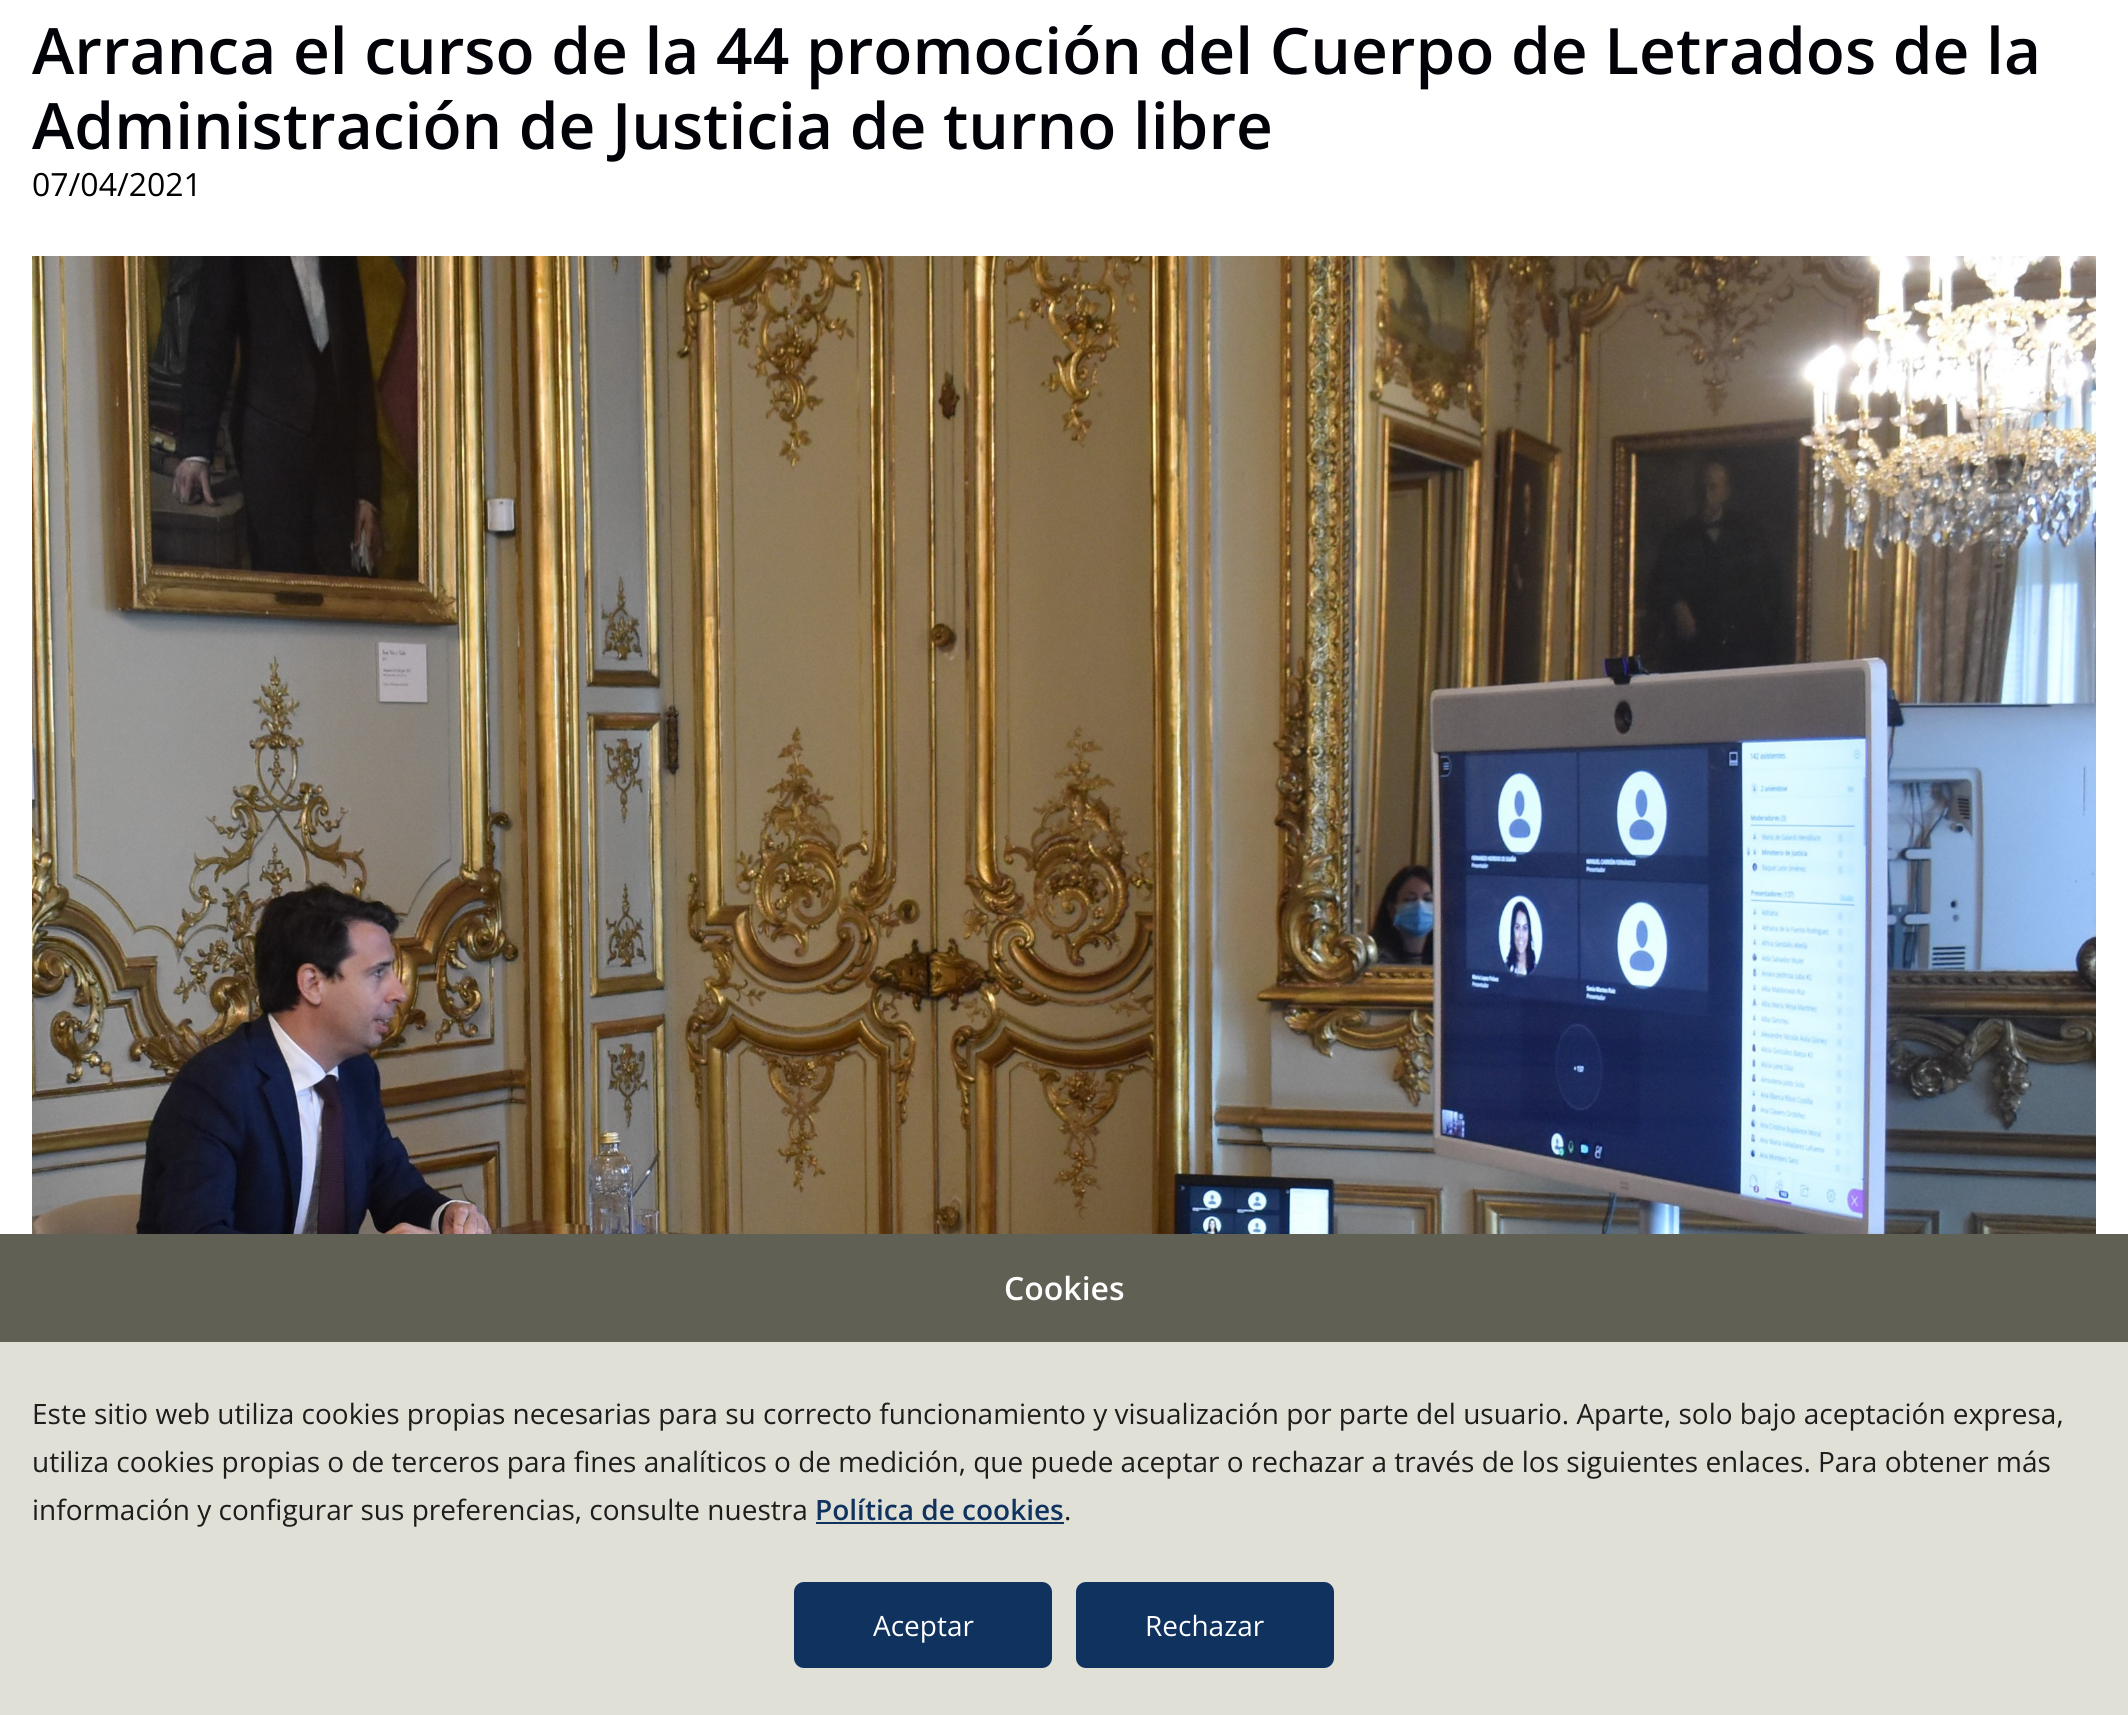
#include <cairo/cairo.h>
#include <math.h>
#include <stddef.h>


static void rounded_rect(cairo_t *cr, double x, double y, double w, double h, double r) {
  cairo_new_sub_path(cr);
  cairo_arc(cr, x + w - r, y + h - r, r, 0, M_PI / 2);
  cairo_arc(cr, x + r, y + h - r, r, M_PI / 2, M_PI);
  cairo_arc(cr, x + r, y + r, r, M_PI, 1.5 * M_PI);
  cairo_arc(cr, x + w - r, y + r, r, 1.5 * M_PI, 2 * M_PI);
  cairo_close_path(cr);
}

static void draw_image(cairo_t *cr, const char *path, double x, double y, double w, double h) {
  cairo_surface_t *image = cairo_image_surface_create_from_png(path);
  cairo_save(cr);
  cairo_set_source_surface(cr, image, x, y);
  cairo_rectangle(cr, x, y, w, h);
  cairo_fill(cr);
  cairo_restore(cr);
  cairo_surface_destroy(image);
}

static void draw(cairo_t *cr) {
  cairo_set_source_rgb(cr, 1, 1, 1);
  cairo_paint(cr);
  draw_image(cr, "images/1.png", 32, 256, 2064, 978);
  cairo_set_source_rgb(cr, 224 / 255.0, 224 / 255.0, 215 / 255.0);
  cairo_rectangle(cr, 0, 1342, 2128, 373);
  cairo_fill(cr);
  cairo_set_source_rgb(cr, 96 / 255.0, 96 / 255.0, 85 / 255.0);
  cairo_rectangle(cr, 0, 1234, 2128, 108);
  cairo_fill(cr);
  cairo_set_source_rgb(cr, 16 / 255.0, 50 / 255.0, 95 / 255.0);
  cairo_rectangle(cr, 816, 1522, 248, 2);
  cairo_fill(cr);
  rounded_rect(cr, 794, 1582, 258, 86, 10);
  cairo_fill(cr);
  rounded_rect(cr, 1076, 1582, 258, 86, 10);
  cairo_fill(cr);
  cairo_select_font_face(cr, "Open Sans SemiBold", CAIRO_FONT_SLANT_NORMAL, CAIRO_FONT_WEIGHT_NORMAL);
  cairo_set_font_size(cr, 64);
  cairo_set_source_rgb(cr, 1 / 255.0, 3 / 255.0, 9 / 255.0);
  cairo_move_to(cr, 32, 74);
  cairo_show_text(cr, "Arranca el curso de la 44 promoción del Cuerpo de Letrados de la");
  cairo_move_to(cr, 32, 149);
  cairo_show_text(cr, "Administración de Justicia de turno libre");
  cairo_select_font_face(cr, "Open Sans", CAIRO_FONT_SLANT_NORMAL, CAIRO_FONT_WEIGHT_NORMAL);
  cairo_set_font_size(cr, 32);
  cairo_set_source_rgb(cr, 0, 0, 0);
  cairo_move_to(cr, 32, 196);
  cairo_show_text(cr, "07/04/2021");
  cairo_select_font_face(cr, "Open Sans SemiBold", CAIRO_FONT_SLANT_NORMAL, CAIRO_FONT_WEIGHT_NORMAL);
  cairo_set_source_rgb(cr, 1, 1, 1);
  cairo_move_to(cr, 1004, 1300);
  cairo_show_text(cr, "Cookies");
  cairo_select_font_face(cr, "Open Sans", CAIRO_FONT_SLANT_NORMAL, CAIRO_FONT_WEIGHT_NORMAL);
  cairo_set_font_size(cr, 28);
  cairo_set_source_rgb(cr, 29 / 255.0, 29 / 255.0, 27 / 255.0);
  cairo_move_to(cr, 32, 1424);
  cairo_show_text(cr, "Este sitio web utiliza cookies propias necesarias para su correcto funcionamiento y visualización por parte del usuario. Aparte, solo bajo aceptación expresa,");
  cairo_move_to(cr, 32, 1472);
  cairo_show_text(cr, "utiliza cookies propias o de terceros para fines analíticos o de medición, que puede aceptar o rechazar a través de los siguientes enlaces. Para obtener más");
  cairo_move_to(cr, 32, 1520);
  cairo_show_text(cr, "información y configurar sus preferencias, consulte nuestra");
  cairo_select_font_face(cr, "Open Sans SemiBold", CAIRO_FONT_SLANT_NORMAL, CAIRO_FONT_WEIGHT_NORMAL);
  cairo_set_source_rgb(cr, 16 / 255.0, 50 / 255.0, 95 / 255.0);
  cairo_move_to(cr, 815, 1520);
  cairo_show_text(cr, "Política de cookies");
  cairo_select_font_face(cr, "Open Sans", CAIRO_FONT_SLANT_NORMAL, CAIRO_FONT_WEIGHT_NORMAL);
  cairo_set_source_rgb(cr, 29 / 255.0, 29 / 255.0, 27 / 255.0);
  cairo_move_to(cr, 1064, 1520);
  cairo_show_text(cr, ".");
  cairo_set_source_rgb(cr, 1, 1, 1);
  cairo_move_to(cr, 873, 1636);
  cairo_show_text(cr, "Aceptar");
  cairo_move_to(cr, 1145, 1636);
  cairo_show_text(cr, "Rechazar");
}

int main(void) {
  cairo_surface_t *surface = cairo_image_surface_create(CAIRO_FORMAT_RGB24, 2128, 1715);
  cairo_t *cr = cairo_create(surface);
  cairo_font_options_t *options = cairo_font_options_create();
  cairo_font_options_set_hint_metrics(options, CAIRO_HINT_METRICS_OFF);
  cairo_font_options_set_hint_style(options, CAIRO_HINT_STYLE_NONE);
  cairo_set_font_options(cr, options);
  cairo_set_miter_limit(cr, 4);
  draw(cr);
  cairo_surface_write_to_png(surface, "out.png");
  cairo_font_options_destroy(options);
  cairo_destroy(cr);
  cairo_surface_destroy(surface);
  return 0;
}
